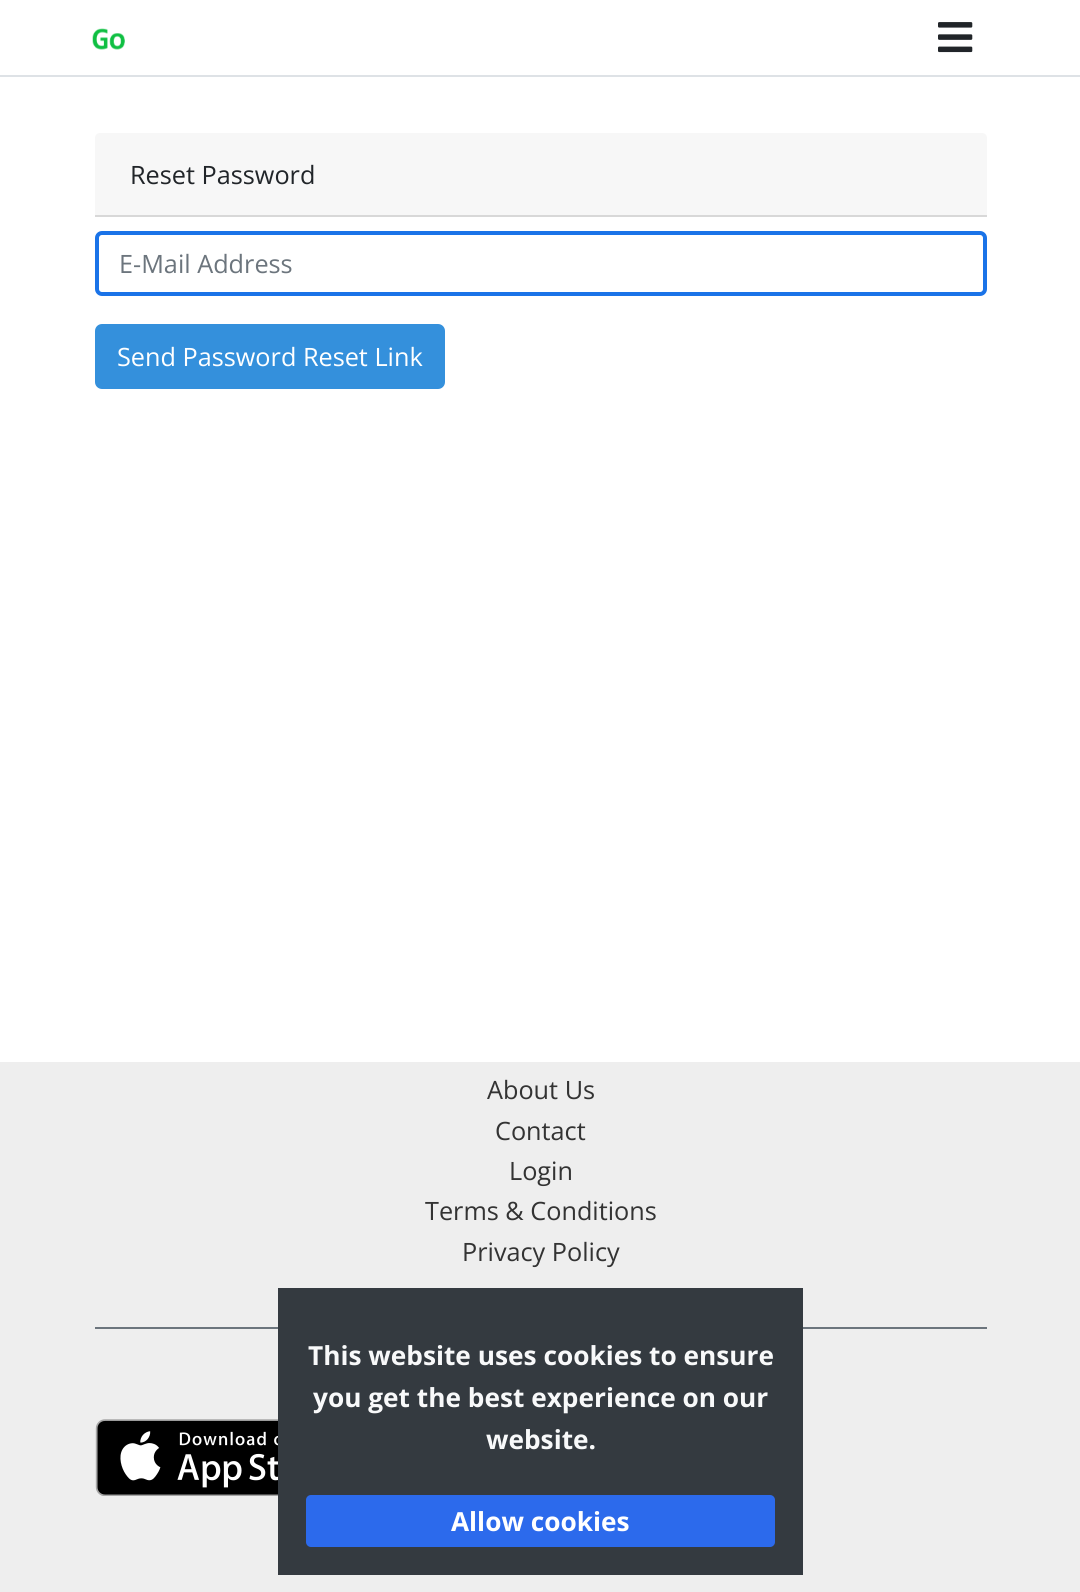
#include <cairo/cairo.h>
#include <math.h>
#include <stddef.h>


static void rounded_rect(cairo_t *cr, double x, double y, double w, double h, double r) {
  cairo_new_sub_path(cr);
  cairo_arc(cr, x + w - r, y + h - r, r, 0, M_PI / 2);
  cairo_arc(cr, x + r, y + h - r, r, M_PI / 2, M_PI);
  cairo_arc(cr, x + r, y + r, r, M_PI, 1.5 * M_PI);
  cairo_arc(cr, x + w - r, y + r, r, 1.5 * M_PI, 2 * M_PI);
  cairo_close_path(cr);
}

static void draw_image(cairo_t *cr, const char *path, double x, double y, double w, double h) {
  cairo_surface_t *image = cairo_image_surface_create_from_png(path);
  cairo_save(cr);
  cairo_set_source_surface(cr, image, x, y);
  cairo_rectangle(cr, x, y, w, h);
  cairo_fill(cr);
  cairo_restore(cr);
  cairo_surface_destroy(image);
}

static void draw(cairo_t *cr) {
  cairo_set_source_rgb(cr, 1, 1, 1);
  cairo_paint(cr);
  cairo_set_source_rgb(cr, 222 / 255.0, 226 / 255.0, 230 / 255.0);
  cairo_rectangle(cr, 0, 75, 1080, 2);
  cairo_fill(cr);
  draw_image(cr, "images/1.png", 92, 28, 33, 22);
  draw_image(cr, "images/2.png", 938, 22, 35, 31);
  cairo_set_source_rgb(cr, 247 / 255.0, 247 / 255.0, 247 / 255.0);
  cairo_new_path(cr);
  cairo_move_to(cr, 100, 133);
  cairo_line_to(cr, 982, 133);
  cairo_curve_to(cr, 985, 133, 987, 135, 987, 138);
  cairo_line_to(cr, 987, 217);
  cairo_line_to(cr, 95, 217);
  cairo_line_to(cr, 95, 138);
  cairo_curve_to(cr, 95, 135, 97, 133, 100, 133);
  cairo_close_path(cr);
  cairo_fill(cr);
  cairo_set_source_rgb(cr, 216 / 255.0, 216 / 255.0, 216 / 255.0);
  cairo_rectangle(cr, 95, 215, 892, 2);
  cairo_fill(cr);
  rounded_rect(cr, 97, 233, 888, 61, 5);
  cairo_set_source_rgb(cr, 26 / 255.0, 115 / 255.0, 232 / 255.0);
  cairo_set_line_width(cr, 4);
  cairo_stroke(cr);
  cairo_set_source_rgb(cr, 52 / 255.0, 144 / 255.0, 220 / 255.0);
  rounded_rect(cr, 96, 325, 348, 63, 6);
  cairo_fill_preserve(cr);
  cairo_set_line_width(cr, 2);
  cairo_stroke(cr);
  cairo_set_source_rgb(cr, 238 / 255.0, 238 / 255.0, 238 / 255.0);
  cairo_rectangle(cr, 0, 1062, 1080, 530);
  cairo_fill(cr);
  cairo_set_source_rgb(cr, 108 / 255.0, 117 / 255.0, 125 / 255.0);
  cairo_rectangle(cr, 95, 1327, 892, 2);
  cairo_fill(cr);
  draw_image(cr, "images/3.png", 95, 1419, 183, 77);
  cairo_set_source_rgb(cr, 52 / 255.0, 58 / 255.0, 64 / 255.0);
  cairo_rectangle(cr, 278, 1288, 525, 287);
  cairo_fill(cr);
  cairo_set_source_rgb(cr, 44 / 255.0, 106 / 255.0, 236 / 255.0);
  rounded_rect(cr, 306, 1495, 469, 52, 5);
  cairo_fill(cr);
  cairo_select_font_face(cr, "Open Sans", CAIRO_FONT_SLANT_NORMAL, CAIRO_FONT_WEIGHT_NORMAL);
  cairo_set_font_size(cr, 25.25);
  cairo_set_source_rgb(cr, 33 / 255.0, 37 / 255.0, 41 / 255.0);
  cairo_move_to(cr, 130, 184);
  cairo_show_text(cr, "Reset Password");
  cairo_set_source_rgb(cr, 108 / 255.0, 117 / 255.0, 125 / 255.0);
  cairo_move_to(cr, 119, 273);
  cairo_show_text(cr, "E-Mail Address");
  cairo_set_source_rgb(cr, 1, 1, 1);
  cairo_move_to(cr, 117, 366);
  cairo_show_text(cr, "Send Password Reset Link");
  cairo_set_source_rgb(cr, 51 / 255.0, 51 / 255.0, 51 / 255.0);
  cairo_move_to(cr, 487, 1099);
  cairo_show_text(cr, "About Us");
  cairo_move_to(cr, 495, 1140);
  cairo_show_text(cr, "Contact");
  cairo_move_to(cr, 509, 1180);
  cairo_show_text(cr, "Login");
  cairo_move_to(cr, 425, 1220);
  cairo_show_text(cr, "Terms & Conditions");
  cairo_move_to(cr, 462, 1261);
  cairo_show_text(cr, "Privacy Policy");
  cairo_select_font_face(cr, "Open Sans", CAIRO_FONT_SLANT_NORMAL, CAIRO_FONT_WEIGHT_BOLD);
  cairo_set_font_size(cr, 26.25);
  cairo_set_source_rgb(cr, 248 / 255.0, 249 / 255.0, 250 / 255.0);
  cairo_move_to(cr, 308, 1365);
  cairo_show_text(cr, "This website uses cookies to ensure");
  cairo_move_to(cr, 313, 1407);
  cairo_show_text(cr, "you get the best experience on our");
  cairo_move_to(cr, 486, 1449);
  cairo_show_text(cr, "website.");
  cairo_set_source_rgb(cr, 1, 1, 1);
  cairo_move_to(cr, 451, 1531);
  cairo_show_text(cr, "Allow cookies");
}

int main(void) {
  cairo_surface_t *surface = cairo_image_surface_create(CAIRO_FORMAT_RGB24, 1080, 1592);
  cairo_t *cr = cairo_create(surface);
  cairo_font_options_t *options = cairo_font_options_create();
  cairo_font_options_set_hint_metrics(options, CAIRO_HINT_METRICS_OFF);
  cairo_font_options_set_hint_style(options, CAIRO_HINT_STYLE_NONE);
  cairo_set_font_options(cr, options);
  cairo_set_miter_limit(cr, 4);
  draw(cr);
  cairo_surface_write_to_png(surface, "out.png");
  cairo_font_options_destroy(options);
  cairo_destroy(cr);
  cairo_surface_destroy(surface);
  return 0;
}
